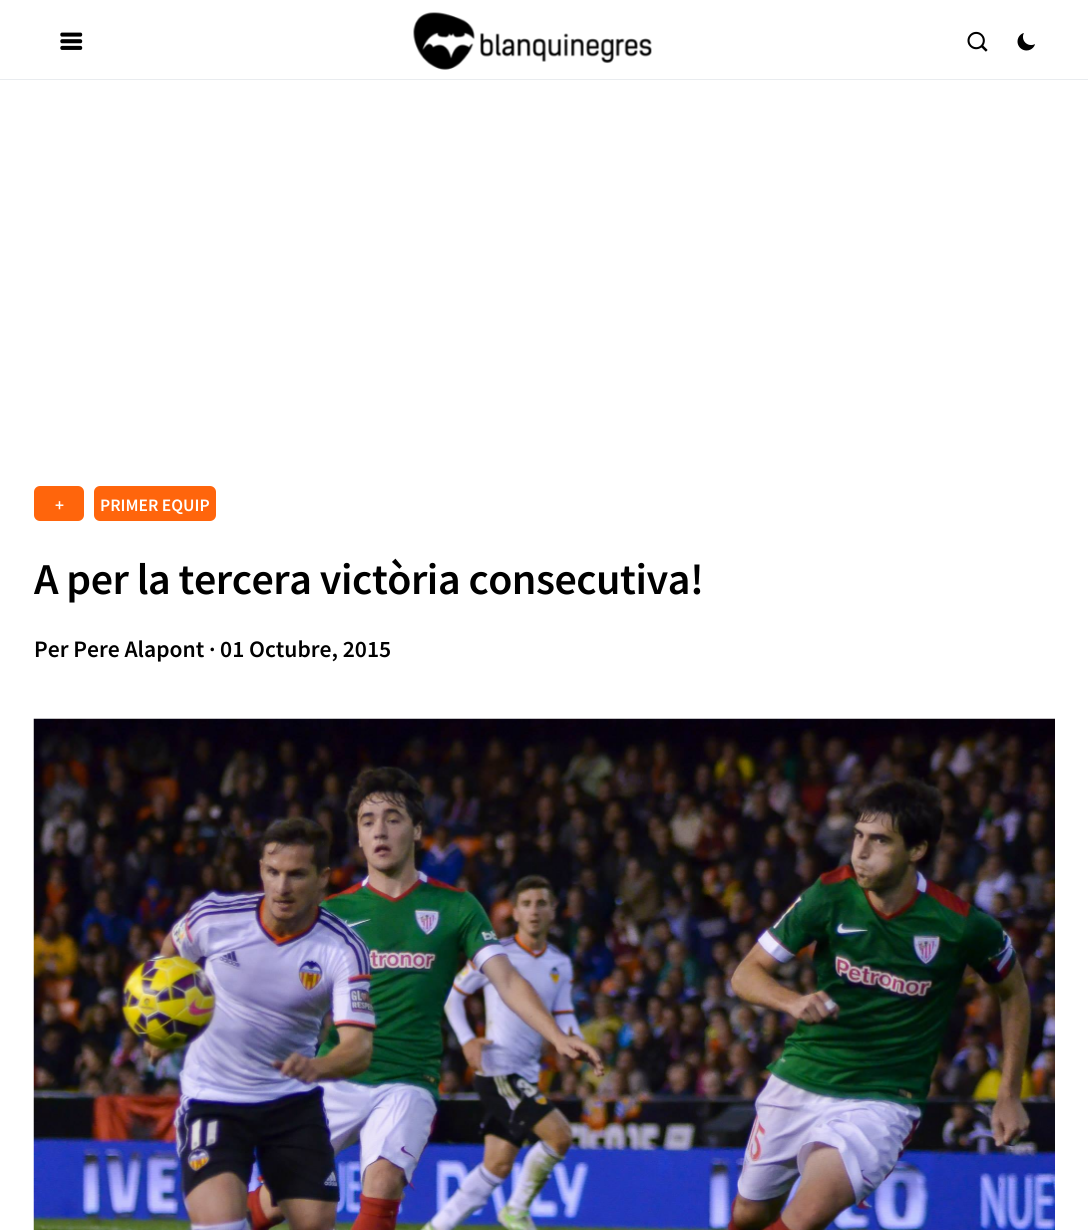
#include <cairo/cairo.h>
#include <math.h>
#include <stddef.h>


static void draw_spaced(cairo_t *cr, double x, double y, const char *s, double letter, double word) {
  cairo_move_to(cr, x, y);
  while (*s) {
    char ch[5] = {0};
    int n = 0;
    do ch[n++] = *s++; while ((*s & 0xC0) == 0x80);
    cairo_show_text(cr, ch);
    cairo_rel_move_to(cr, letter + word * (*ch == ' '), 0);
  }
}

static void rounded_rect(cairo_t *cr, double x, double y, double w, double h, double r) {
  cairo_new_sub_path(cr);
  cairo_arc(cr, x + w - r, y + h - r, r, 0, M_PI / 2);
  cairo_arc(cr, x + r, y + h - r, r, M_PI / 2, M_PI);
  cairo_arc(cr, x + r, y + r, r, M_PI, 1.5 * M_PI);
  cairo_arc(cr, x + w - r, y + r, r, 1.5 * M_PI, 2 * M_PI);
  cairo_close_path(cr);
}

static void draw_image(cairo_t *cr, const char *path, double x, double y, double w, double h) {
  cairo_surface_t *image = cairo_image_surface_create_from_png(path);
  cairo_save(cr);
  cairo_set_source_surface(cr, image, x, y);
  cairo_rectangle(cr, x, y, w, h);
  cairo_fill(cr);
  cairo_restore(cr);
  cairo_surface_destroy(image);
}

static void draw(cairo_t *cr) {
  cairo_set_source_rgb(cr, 1, 1, 1);
  cairo_paint(cr);
  cairo_set_source_rgb(cr, 233 / 255.0, 236 / 255.0, 239 / 255.0);
  cairo_rectangle(cr, 0, 79, 1088, 1);
  cairo_fill(cr);
  draw_image(cr, "images/1.png", 60, 32, 23, 18);
  draw_image(cr, "images/2.png", 413, 12, 239, 58);
  draw_image(cr, "images/3.png", 967, 31, 21, 21);
  draw_image(cr, "images/4.png", 1017, 33, 18, 18);
  cairo_set_source_rgb(cr, 1, 101 / 255.0, 12 / 255.0);
  rounded_rect(cr, 34, 486, 50, 35, 6);
  cairo_fill(cr);
  rounded_rect(cr, 94, 486, 122, 35, 6);
  cairo_fill(cr);
  draw_image(cr, "images/5.png", 33, 718, 1022, 512);
  cairo_select_font_face(cr, "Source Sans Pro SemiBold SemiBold", CAIRO_FONT_SLANT_NORMAL, CAIRO_FONT_WEIGHT_NORMAL);
  cairo_set_font_size(cr, 17.5);
  cairo_set_source_rgb(cr, 1, 1, 1);
  cairo_move_to(cr, 55, 511);
  cairo_show_text(cr, "+");
  cairo_move_to(cr, 100, 511);
  cairo_show_text(cr, "PRIMER EQUIP");
  cairo_set_font_size(cr, 44);
  cairo_set_source_rgb(cr, 0, 0, 0);
  draw_spaced(cr, 34, 594, "A per la tercera victòria consecutiva!", -0.5, 0);
  cairo_set_font_size(cr, 23.6);
  cairo_move_to(cr, 34, 657);
  cairo_show_text(cr, "Per Pere Alapont · 01 Octubre, 2015");
}

int main(void) {
  cairo_surface_t *surface = cairo_image_surface_create(CAIRO_FORMAT_RGB24, 1088, 1230);
  cairo_t *cr = cairo_create(surface);
  cairo_font_options_t *options = cairo_font_options_create();
  cairo_font_options_set_hint_metrics(options, CAIRO_HINT_METRICS_OFF);
  cairo_font_options_set_hint_style(options, CAIRO_HINT_STYLE_NONE);
  cairo_set_font_options(cr, options);
  cairo_set_miter_limit(cr, 4);
  draw(cr);
  cairo_surface_write_to_png(surface, "out.png");
  cairo_font_options_destroy(options);
  cairo_destroy(cr);
  cairo_surface_destroy(surface);
  return 0;
}
